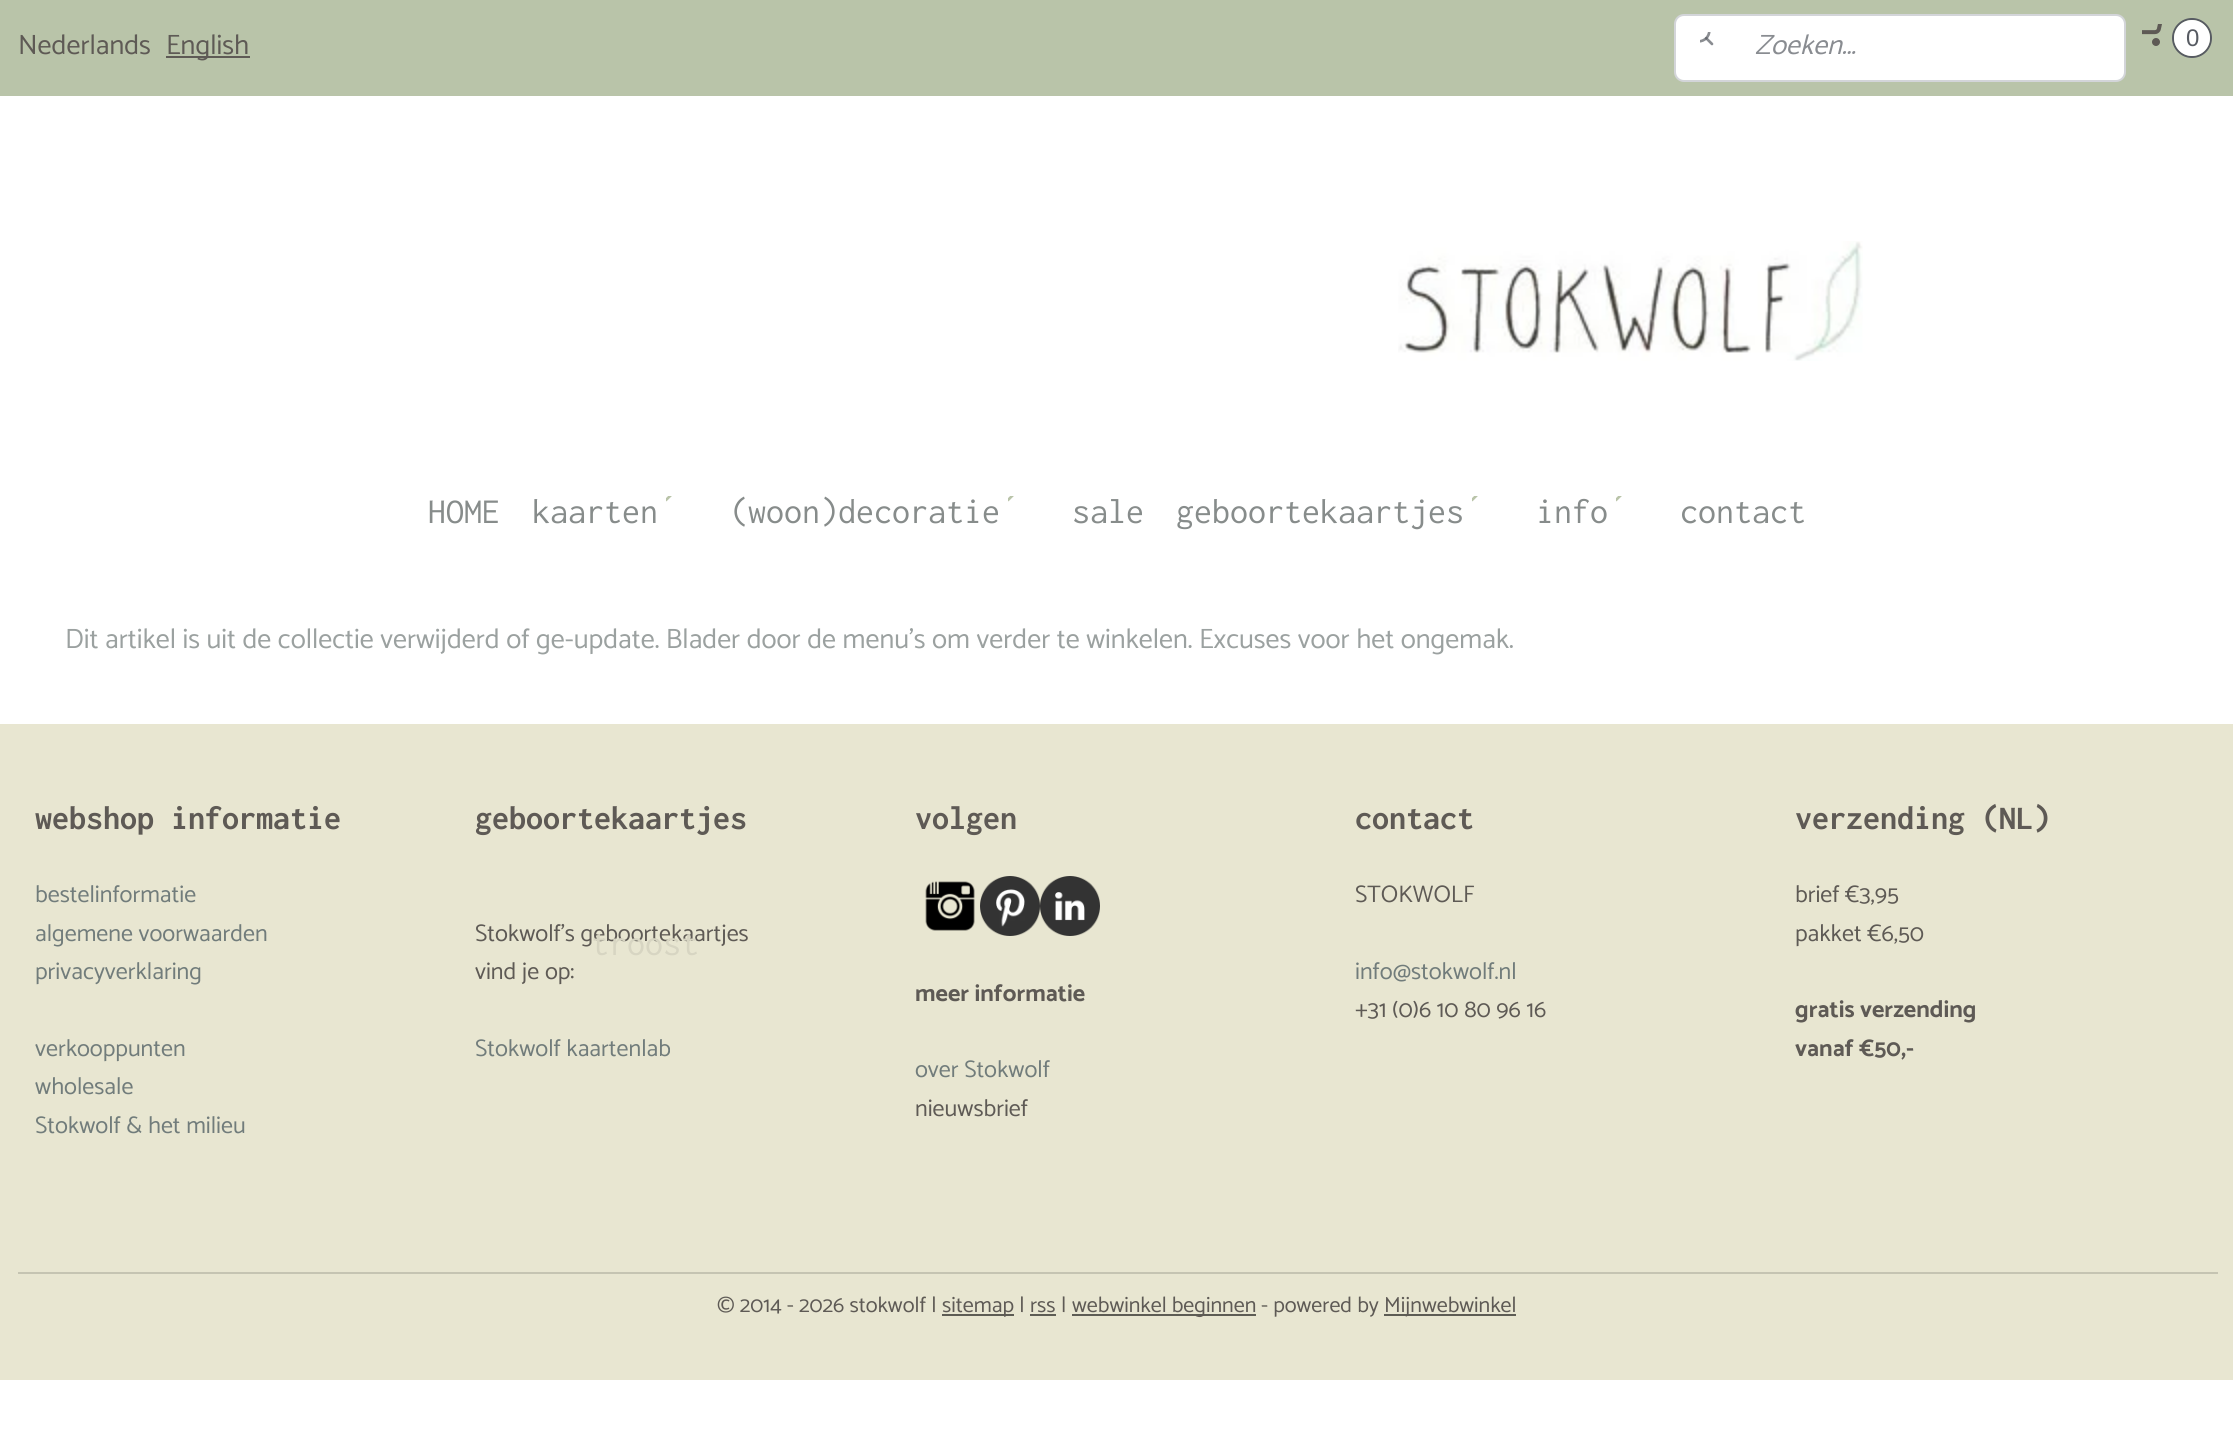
#include <cairo/cairo.h>
#include <math.h>
#include <stddef.h>


static void rounded_rect(cairo_t *cr, double x, double y, double w, double h, double r) {
  cairo_new_sub_path(cr);
  cairo_arc(cr, x + w - r, y + h - r, r, 0, M_PI / 2);
  cairo_arc(cr, x + r, y + h - r, r, M_PI / 2, M_PI);
  cairo_arc(cr, x + r, y + r, r, M_PI, 1.5 * M_PI);
  cairo_arc(cr, x + w - r, y + r, r, 1.5 * M_PI, 2 * M_PI);
  cairo_close_path(cr);
}

static void draw_image(cairo_t *cr, const char *path, double x, double y, double w, double h) {
  cairo_surface_t *image = cairo_image_surface_create_from_png(path);
  cairo_save(cr);
  cairo_set_source_surface(cr, image, x, y);
  cairo_rectangle(cr, x, y, w, h);
  cairo_fill(cr);
  cairo_restore(cr);
  cairo_surface_destroy(image);
}

static void draw(cairo_t *cr) {
  cairo_set_source_rgb(cr, 1, 1, 1);
  cairo_paint(cr);
  cairo_set_source_rgb(cr, 185 / 255.0, 196 / 255.0, 169 / 255.0);
  cairo_rectangle(cr, 0, 0, 2233, 96);
  cairo_fill(cr);
  cairo_set_source_rgb(cr, 94 / 255.0, 90 / 255.0, 85 / 255.0);
  cairo_rectangle(cr, 166, 56, 84, 2);
  cairo_fill(cr);
  cairo_set_source_rgb(cr, 1, 1, 1);
  rounded_rect(cr, 1675, 15, 450, 66, 9);
  cairo_fill_preserve(cr);
  cairo_set_source_rgb(cr, 211 / 255.0, 213 / 255.0, 217 / 255.0);
  cairo_stroke(cr);
  draw_image(cr, "images/1.png", 1700, 32, 14, 14);
  draw_image(cr, "images/2.png", 2142, 24, 20, 22);
  cairo_arc(cr, 2192, 38, 19, 0, 2 * M_PI);
  cairo_set_source_rgb(cr, 87 / 255.0, 91 / 255.0, 98 / 255.0);
  cairo_stroke(cr);
  cairo_set_source_rgb(cr, 1, 1, 1);
  cairo_arc(cr, 2192, 38, 18, 0, 2 * M_PI);
  cairo_fill(cr);
  draw_image(cr, "images/3.png", 1398, 241, 465, 120);
  draw_image(cr, "images/4.png", 666, 496, 6, 6);
  draw_image(cr, "images/4.png", 1008, 496, 6, 6);
  draw_image(cr, "images/4.png", 1472, 496, 6, 6);
  draw_image(cr, "images/4.png", 1616, 496, 6, 6);
  cairo_set_source_rgb(cr, 232 / 255.0, 230 / 255.0, 209 / 255.0);
  cairo_rectangle(cr, 0, 724, 2233, 656);
  cairo_fill(cr);
  draw_image(cr, "images/5.png", 925, 881, 50, 50);
  draw_image(cr, "images/6.png", 980, 876, 60, 60);
  draw_image(cr, "images/7.png", 1040, 876, 60, 60);
  cairo_set_source_rgb(cr, 197 / 255.0, 196 / 255.0, 178 / 255.0);
  cairo_rectangle(cr, 18, 1272, 2200, 2);
  cairo_fill(cr);
  cairo_set_source_rgb(cr, 93 / 255.0, 92 / 255.0, 84 / 255.0);
  cairo_rectangle(cr, 942, 1314, 72, 2);
  cairo_fill(cr);
  cairo_rectangle(cr, 1072, 1314, 184, 2);
  cairo_fill(cr);
  cairo_rectangle(cr, 1384, 1314, 132, 2);
  cairo_fill(cr);
  cairo_rectangle(cr, 1030, 1314, 26, 2);
  cairo_fill(cr);
  cairo_select_font_face(cr, "Catamaran", CAIRO_FONT_SLANT_NORMAL, CAIRO_FONT_WEIGHT_NORMAL);
  cairo_set_font_size(cr, 28);
  cairo_set_source_rgb(cr, 94 / 255.0, 90 / 255.0, 85 / 255.0);
  cairo_move_to(cr, 18, 54);
  cairo_show_text(cr, "Nederlands");
  cairo_move_to(cr, 166, 54);
  cairo_show_text(cr, "English");
  cairo_select_font_face(cr, "Catamaran", CAIRO_FONT_SLANT_ITALIC, CAIRO_FONT_WEIGHT_NORMAL);
  cairo_set_source_rgb(cr, 137 / 255.0, 140 / 255.0, 145 / 255.0);
  cairo_move_to(cr, 1755, 54);
  cairo_show_text(cr, "Zoeken...");
  cairo_select_font_face(cr, "Liberation Sans", CAIRO_FONT_SLANT_NORMAL, CAIRO_FONT_WEIGHT_NORMAL);
  cairo_set_font_size(cr, 24);
  cairo_set_source_rgb(cr, 87 / 255.0, 91 / 255.0, 98 / 255.0);
  cairo_move_to(cr, 2186, 46);
  cairo_show_text(cr, "0");
  cairo_select_font_face(cr, "Inconsolata", CAIRO_FONT_SLANT_NORMAL, CAIRO_FONT_WEIGHT_NORMAL);
  cairo_set_font_size(cr, 36);
  cairo_set_source_rgb(cr, 135 / 255.0, 140 / 255.0, 139 / 255.0);
  cairo_move_to(cr, 428, 523);
  cairo_show_text(cr, "HOME");
  cairo_move_to(cr, 532, 523);
  cairo_show_text(cr, "kaarten");
  cairo_move_to(cr, 730, 523);
  cairo_show_text(cr, "(woon)decoratie");
  cairo_move_to(cr, 1072, 523);
  cairo_show_text(cr, "sale");
  cairo_move_to(cr, 1176, 523);
  cairo_show_text(cr, "geboortekaartjes");
  cairo_move_to(cr, 1536, 523);
  cairo_show_text(cr, "info");
  cairo_move_to(cr, 1680, 523);
  cairo_show_text(cr, "contact");
  cairo_select_font_face(cr, "Catamaran", CAIRO_FONT_SLANT_NORMAL, CAIRO_FONT_WEIGHT_NORMAL);
  cairo_set_font_size(cr, 28);
  cairo_set_source_rgb(cr, 155 / 255.0, 161 / 255.0, 160 / 255.0);
  cairo_move_to(cr, 65, 648);
  cairo_show_text(cr, "Dit artikel is uit de collectie verwijderd of ge-update. Blader door de menu's om verder te winkelen. Excuses voor het ongemak.");
  cairo_select_font_face(cr, "Inconsolata", CAIRO_FONT_SLANT_NORMAL, CAIRO_FONT_WEIGHT_BOLD);
  cairo_set_font_size(cr, 34);
  cairo_set_source_rgb(cr, 94 / 255.0, 90 / 255.0, 85 / 255.0);
  cairo_move_to(cr, 35, 829);
  cairo_show_text(cr, "webshop informatie");
  cairo_select_font_face(cr, "Catamaran", CAIRO_FONT_SLANT_NORMAL, CAIRO_FONT_WEIGHT_NORMAL);
  cairo_set_font_size(cr, 24);
  cairo_set_source_rgb(cr, 113 / 255.0, 124 / 255.0, 123 / 255.0);
  cairo_move_to(cr, 35, 902);
  cairo_show_text(cr, "bestelinformatie");
  cairo_move_to(cr, 35, 941);
  cairo_show_text(cr, "algemene voorwaarden");
  cairo_move_to(cr, 35, 979);
  cairo_show_text(cr, "privacyverklaring");
  cairo_move_to(cr, 35, 1056);
  cairo_show_text(cr, "verkooppunten");
  cairo_move_to(cr, 35, 1094);
  cairo_show_text(cr, "wholesale");
  cairo_move_to(cr, 35, 1133);
  cairo_show_text(cr, "Stokwolf & het milieu");
  cairo_select_font_face(cr, "Inconsolata", CAIRO_FONT_SLANT_NORMAL, CAIRO_FONT_WEIGHT_BOLD);
  cairo_set_font_size(cr, 34);
  cairo_set_source_rgb(cr, 94 / 255.0, 90 / 255.0, 85 / 255.0);
  cairo_move_to(cr, 475, 829);
  cairo_show_text(cr, "geboortekaartjes");
  cairo_select_font_face(cr, "Catamaran", CAIRO_FONT_SLANT_NORMAL, CAIRO_FONT_WEIGHT_NORMAL);
  cairo_set_font_size(cr, 24);
  cairo_move_to(cr, 475, 941);
  cairo_show_text(cr, "Stokwolf's geboortekaartjes");
  cairo_select_font_face(cr, "Inconsolata", CAIRO_FONT_SLANT_NORMAL, CAIRO_FONT_WEIGHT_NORMAL);
  cairo_set_font_size(cr, 36);
  cairo_set_source_rgb(cr, 215 / 255.0, 213 / 255.0, 194 / 255.0);
  cairo_move_to(cr, 591, 955);
  cairo_show_text(cr, "troost");
  cairo_select_font_face(cr, "Catamaran", CAIRO_FONT_SLANT_NORMAL, CAIRO_FONT_WEIGHT_NORMAL);
  cairo_set_font_size(cr, 24);
  cairo_set_source_rgb(cr, 94 / 255.0, 90 / 255.0, 85 / 255.0);
  cairo_move_to(cr, 475, 979);
  cairo_show_text(cr, "vind je op:");
  cairo_set_source_rgb(cr, 113 / 255.0, 124 / 255.0, 123 / 255.0);
  cairo_move_to(cr, 475, 1056);
  cairo_show_text(cr, "Stokwolf kaartenlab");
  cairo_select_font_face(cr, "Inconsolata", CAIRO_FONT_SLANT_NORMAL, CAIRO_FONT_WEIGHT_BOLD);
  cairo_set_font_size(cr, 34);
  cairo_set_source_rgb(cr, 94 / 255.0, 90 / 255.0, 85 / 255.0);
  cairo_move_to(cr, 915, 829);
  cairo_show_text(cr, "volgen");
  cairo_select_font_face(cr, "Catamaran", CAIRO_FONT_SLANT_NORMAL, CAIRO_FONT_WEIGHT_BOLD);
  cairo_set_font_size(cr, 24);
  cairo_move_to(cr, 915, 1001);
  cairo_show_text(cr, "meer informatie");
  cairo_select_font_face(cr, "Catamaran", CAIRO_FONT_SLANT_NORMAL, CAIRO_FONT_WEIGHT_NORMAL);
  cairo_set_source_rgb(cr, 113 / 255.0, 124 / 255.0, 123 / 255.0);
  cairo_move_to(cr, 915, 1077);
  cairo_show_text(cr, "over Stokwolf");
  cairo_set_source_rgb(cr, 94 / 255.0, 90 / 255.0, 85 / 255.0);
  cairo_move_to(cr, 915, 1116);
  cairo_show_text(cr, "nieuwsbrief");
  cairo_select_font_face(cr, "Inconsolata", CAIRO_FONT_SLANT_NORMAL, CAIRO_FONT_WEIGHT_BOLD);
  cairo_set_font_size(cr, 34);
  cairo_move_to(cr, 1355, 829);
  cairo_show_text(cr, "contact");
  cairo_select_font_face(cr, "Catamaran", CAIRO_FONT_SLANT_NORMAL, CAIRO_FONT_WEIGHT_NORMAL);
  cairo_set_font_size(cr, 24);
  cairo_move_to(cr, 1355, 902);
  cairo_show_text(cr, "STOKWOLF");
  cairo_set_source_rgb(cr, 113 / 255.0, 124 / 255.0, 123 / 255.0);
  cairo_move_to(cr, 1355, 979);
  cairo_show_text(cr, "info@stokwolf.nl");
  cairo_set_source_rgb(cr, 94 / 255.0, 90 / 255.0, 85 / 255.0);
  cairo_move_to(cr, 1355, 1017);
  cairo_show_text(cr, "+31 (0)6 10 80 96 16");
  cairo_select_font_face(cr, "Inconsolata", CAIRO_FONT_SLANT_NORMAL, CAIRO_FONT_WEIGHT_BOLD);
  cairo_set_font_size(cr, 34);
  cairo_move_to(cr, 1795, 829);
  cairo_show_text(cr, "verzending (NL)");
  cairo_select_font_face(cr, "Catamaran", CAIRO_FONT_SLANT_NORMAL, CAIRO_FONT_WEIGHT_NORMAL);
  cairo_set_font_size(cr, 24);
  cairo_move_to(cr, 1795, 902);
  cairo_show_text(cr, "brief €3,95");
  cairo_move_to(cr, 1795, 941);
  cairo_show_text(cr, "pakket €6,50");
  cairo_select_font_face(cr, "Catamaran", CAIRO_FONT_SLANT_NORMAL, CAIRO_FONT_WEIGHT_BOLD);
  cairo_move_to(cr, 1795, 1017);
  cairo_show_text(cr, "gratis verzending");
  cairo_move_to(cr, 1795, 1056);
  cairo_show_text(cr, "vanaf €50,-");
  cairo_select_font_face(cr, "Catamaran", CAIRO_FONT_SLANT_NORMAL, CAIRO_FONT_WEIGHT_NORMAL);
  cairo_set_font_size(cr, 22);
  cairo_move_to(cr, 717, 1312);
  cairo_show_text(cr, "© 2014 - 2026 stokwolf |");
  cairo_move_to(cr, 942, 1312);
  cairo_show_text(cr, "sitemap");
  cairo_move_to(cr, 1019, 1312);
  cairo_show_text(cr, "| rss |");
  cairo_move_to(cr, 1072, 1312);
  cairo_show_text(cr, "webwinkel beginnen");
  cairo_move_to(cr, 1261, 1312);
  cairo_show_text(cr, "- powered by");
  cairo_move_to(cr, 1384, 1312);
  cairo_show_text(cr, "Mijnwebwinkel");
}

int main(void) {
  cairo_surface_t *surface = cairo_image_surface_create(CAIRO_FORMAT_RGB24, 2233, 1431);
  cairo_t *cr = cairo_create(surface);
  cairo_font_options_t *options = cairo_font_options_create();
  cairo_font_options_set_hint_metrics(options, CAIRO_HINT_METRICS_OFF);
  cairo_font_options_set_hint_style(options, CAIRO_HINT_STYLE_NONE);
  cairo_set_font_options(cr, options);
  cairo_set_miter_limit(cr, 4);
  draw(cr);
  cairo_surface_write_to_png(surface, "out.png");
  cairo_font_options_destroy(options);
  cairo_destroy(cr);
  cairo_surface_destroy(surface);
  return 0;
}
